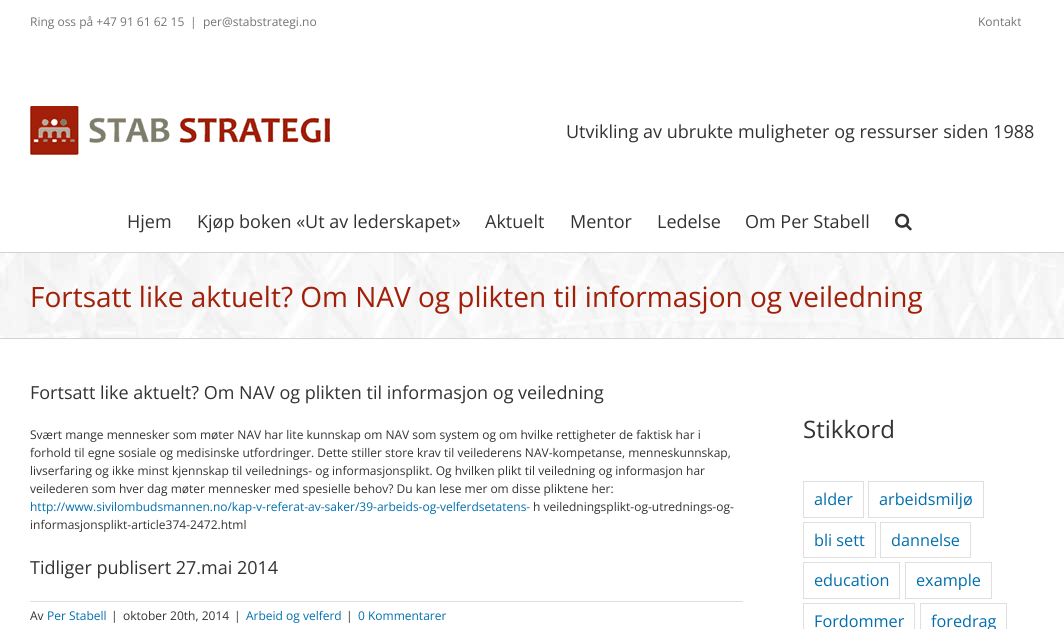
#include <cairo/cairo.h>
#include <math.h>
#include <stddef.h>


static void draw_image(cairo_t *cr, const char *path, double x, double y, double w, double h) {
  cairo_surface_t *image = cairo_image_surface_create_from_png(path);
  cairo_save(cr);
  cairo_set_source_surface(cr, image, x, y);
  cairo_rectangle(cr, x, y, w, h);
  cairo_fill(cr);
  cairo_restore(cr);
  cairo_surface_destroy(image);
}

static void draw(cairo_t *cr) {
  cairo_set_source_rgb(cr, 1, 1, 1);
  cairo_paint(cr);
  draw_image(cr, "images/1.png", 30, 106, 300, 49);
  draw_image(cr, "images/2.png", 895, 213, 17, 18);
  draw_image(cr, "images/3.png", 0, 253, 1064, 85);
  cairo_set_source_rgb(cr, 210 / 255.0, 211 / 255.0, 212 / 255.0);
  cairo_rectangle(cr, 0, 252, 1064, 1);
  cairo_fill(cr);
  cairo_rectangle(cr, 0, 338, 1064, 1);
  cairo_fill(cr);
  cairo_set_source_rgb(cr, 224 / 255.0, 222 / 255.0, 222 / 255.0);
  cairo_rectangle(cr, 30, 601, 713, 1);
  cairo_fill(cr);
  cairo_rectangle(cr, 803.5, 481.5, 60, 36);
  cairo_set_line_width(cr, 1);
  cairo_stroke(cr);
  cairo_rectangle(cr, 868.5, 481.5, 115, 36);
  cairo_stroke(cr);
  cairo_rectangle(cr, 803.5, 522.5, 72, 35);
  cairo_stroke(cr);
  cairo_rectangle(cr, 880.5, 522.5, 90, 35);
  cairo_stroke(cr);
  cairo_rectangle(cr, 803.5, 562.5, 96, 36);
  cairo_stroke(cr);
  cairo_rectangle(cr, 905.5, 562.5, 86, 36);
  cairo_stroke(cr);
  cairo_rectangle(cr, 803.5, 603.5, 111, 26);
  cairo_stroke(cr);
  cairo_rectangle(cr, 920.5, 603.5, 86, 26);
  cairo_stroke(cr);
  cairo_select_font_face(cr, "Open Sans", CAIRO_FONT_SLANT_NORMAL, CAIRO_FONT_WEIGHT_NORMAL);
  cairo_set_font_size(cr, 12);
  cairo_set_source_rgb(cr, 116 / 255.0, 116 / 255.0, 116 / 255.0);
  cairo_move_to(cr, 30, 26);
  cairo_show_text(cr, "Ring oss på +47 91 61 62 15");
  cairo_move_to(cr, 190, 26);
  cairo_show_text(cr, "|");
  cairo_move_to(cr, 203, 26);
  cairo_show_text(cr, "per@stabstrategi.no");
  cairo_move_to(cr, 978, 26);
  cairo_show_text(cr, "Kontakt");
  cairo_set_font_size(cr, 18);
  cairo_set_source_rgb(cr, 51 / 255.0, 51 / 255.0, 51 / 255.0);
  cairo_move_to(cr, 566, 138);
  cairo_show_text(cr, "Utvikling av ubrukte muligheter og ressurser siden 1988");
  cairo_move_to(cr, 127, 228);
  cairo_show_text(cr, "Hjem");
  cairo_move_to(cr, 197, 228);
  cairo_show_text(cr, "Kjøp boken «Ut av lederskapet»");
  cairo_move_to(cr, 485, 228);
  cairo_show_text(cr, "Aktuelt");
  cairo_move_to(cr, 570, 228);
  cairo_show_text(cr, "Mentor");
  cairo_move_to(cr, 657, 228);
  cairo_show_text(cr, "Ledelse");
  cairo_move_to(cr, 745, 228);
  cairo_show_text(cr, "Om Per Stabell");
  cairo_set_font_size(cr, 28);
  cairo_set_source_rgb(cr, 162 / 255.0, 32 / 255.0, 10 / 255.0);
  cairo_move_to(cr, 30, 307);
  cairo_show_text(cr, "Fortsatt like aktuelt? Om NAV og plikten til informasjon og veiledning");
  cairo_set_font_size(cr, 18);
  cairo_set_source_rgb(cr, 51 / 255.0, 51 / 255.0, 51 / 255.0);
  cairo_move_to(cr, 30, 399);
  cairo_show_text(cr, "Fortsatt like aktuelt? Om NAV og plikten til informasjon og veiledning");
  cairo_set_font_size(cr, 12);
  cairo_move_to(cr, 30, 439);
  cairo_show_text(cr, "Svært mange mennesker som møter NAV har lite kunnskap om NAV som system og om hvilke rettigheter de faktisk har i");
  cairo_move_to(cr, 30, 457);
  cairo_show_text(cr, "forhold til egne sosiale og medisinske utfordringer. Dette stiller store krav til veilederens NAV-kompetanse, menneskunnskap,");
  cairo_move_to(cr, 30, 475);
  cairo_show_text(cr, "livserfaring og ikke minst kjennskap til veilednings- og informasjonsplikt. Og hvilken plikt til veiledning og informasjon har");
  cairo_move_to(cr, 30, 493);
  cairo_show_text(cr, "veilederen som hver dag møter mennesker med spesielle behov? Du kan lese mer om disse pliktene her:");
  cairo_set_source_rgb(cr, 1 / 255.0, 110 / 255.0, 173 / 255.0);
  cairo_move_to(cr, 30, 511);
  cairo_show_text(cr, "http://www.sivilombudsmannen.no/kap-v-referat-av-saker/39-arbeids-og-velferdsetatens-");
  cairo_set_source_rgb(cr, 51 / 255.0, 51 / 255.0, 51 / 255.0);
  cairo_move_to(cr, 533, 511);
  cairo_show_text(cr, "h veiledningsplikt-og-utrednings-og-");
  cairo_move_to(cr, 30, 529);
  cairo_show_text(cr, "informasjonsplikt-article374-2472.html");
  cairo_set_font_size(cr, 18);
  cairo_move_to(cr, 30, 574);
  cairo_show_text(cr, "Tidliger publisert 27.mai 2014");
  cairo_set_font_size(cr, 12);
  cairo_move_to(cr, 30, 620);
  cairo_show_text(cr, "Av");
  cairo_set_source_rgb(cr, 1 / 255.0, 110 / 255.0, 173 / 255.0);
  cairo_move_to(cr, 47, 620);
  cairo_show_text(cr, "Per Stabell");
  cairo_set_source_rgb(cr, 51 / 255.0, 51 / 255.0, 51 / 255.0);
  cairo_move_to(cr, 111, 620);
  cairo_show_text(cr, "|");
  cairo_move_to(cr, 123, 620);
  cairo_show_text(cr, "oktober 20th, 2014");
  cairo_move_to(cr, 234, 620);
  cairo_show_text(cr, "|");
  cairo_set_source_rgb(cr, 1 / 255.0, 110 / 255.0, 173 / 255.0);
  cairo_move_to(cr, 246, 620);
  cairo_show_text(cr, "Arbeid og velferd");
  cairo_set_source_rgb(cr, 51 / 255.0, 51 / 255.0, 51 / 255.0);
  cairo_move_to(cr, 346, 620);
  cairo_show_text(cr, "|");
  cairo_set_source_rgb(cr, 1 / 255.0, 110 / 255.0, 173 / 255.0);
  cairo_move_to(cr, 358, 620);
  cairo_show_text(cr, "0 Kommentarer");
  cairo_set_font_size(cr, 24);
  cairo_set_source_rgb(cr, 51 / 255.0, 51 / 255.0, 51 / 255.0);
  cairo_move_to(cr, 803, 438);
  cairo_show_text(cr, "Stikkord");
  cairo_set_font_size(cr, 16.25);
  cairo_set_source_rgb(cr, 1 / 255.0, 110 / 255.0, 173 / 255.0);
  cairo_move_to(cr, 814, 505);
  cairo_show_text(cr, "alder");
  cairo_move_to(cr, 879, 505);
  cairo_show_text(cr, "arbeidsmiljø");
  cairo_move_to(cr, 814, 546);
  cairo_show_text(cr, "bli sett");
  cairo_move_to(cr, 891, 546);
  cairo_show_text(cr, "dannelse");
  cairo_move_to(cr, 814, 586);
  cairo_show_text(cr, "education");
  cairo_move_to(cr, 916, 586);
  cairo_show_text(cr, "example");
  cairo_move_to(cr, 814, 627);
  cairo_show_text(cr, "Fordommer");
  cairo_move_to(cr, 931, 627);
  cairo_show_text(cr, "foredrag");
}

int main(void) {
  cairo_surface_t *surface = cairo_image_surface_create(CAIRO_FORMAT_RGB24, 1064, 629);
  cairo_t *cr = cairo_create(surface);
  cairo_font_options_t *options = cairo_font_options_create();
  cairo_font_options_set_hint_metrics(options, CAIRO_HINT_METRICS_OFF);
  cairo_font_options_set_hint_style(options, CAIRO_HINT_STYLE_NONE);
  cairo_set_font_options(cr, options);
  cairo_set_miter_limit(cr, 4);
  draw(cr);
  cairo_surface_write_to_png(surface, "out.png");
  cairo_font_options_destroy(options);
  cairo_destroy(cr);
  cairo_surface_destroy(surface);
  return 0;
}
